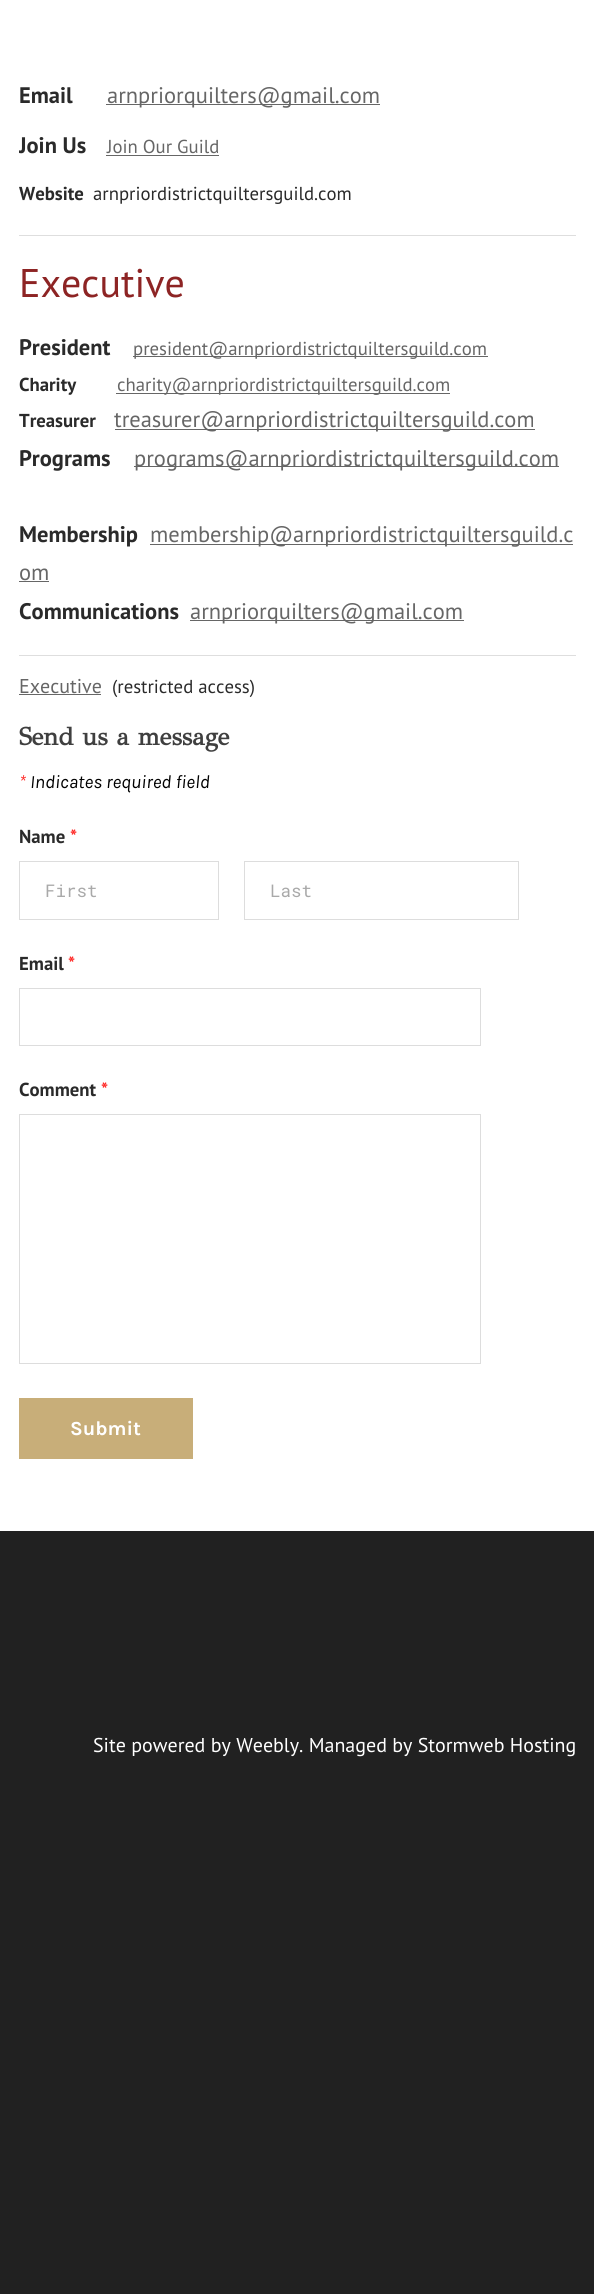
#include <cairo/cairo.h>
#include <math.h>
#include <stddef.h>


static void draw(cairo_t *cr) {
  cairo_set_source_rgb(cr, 33 / 255.0, 33 / 255.0, 33 / 255.0);
  cairo_paint(cr);
  cairo_set_source_rgb(cr, 1, 1, 1);
  cairo_rectangle(cr, 0, 0, 594, 1531);
  cairo_fill(cr);
  cairo_set_source_rgb(cr, 102 / 255.0, 102 / 255.0, 102 / 255.0);
  cairo_rectangle(cr, 106, 104, 274, 1);
  cairo_fill(cr);
  cairo_rectangle(cr, 106, 155, 113, 1);
  cairo_fill(cr);
  cairo_set_source_rgb(cr, 222 / 255.0, 222 / 255.0, 222 / 255.0);
  cairo_rectangle(cr, 19, 235, 557, 1);
  cairo_fill(cr);
  cairo_set_source_rgb(cr, 102 / 255.0, 102 / 255.0, 102 / 255.0);
  cairo_rectangle(cr, 133, 356, 355, 1);
  cairo_fill(cr);
  cairo_rectangle(cr, 116, 393, 334, 1);
  cairo_fill(cr);
  cairo_rectangle(cr, 115, 429, 420, 1);
  cairo_fill(cr);
  cairo_rectangle(cr, 134, 466, 425, 1);
  cairo_fill(cr);
  cairo_rectangle(cr, 150, 544, 423, 1);
  cairo_fill(cr);
  cairo_rectangle(cr, 19, 581, 30, 1);
  cairo_fill(cr);
  cairo_rectangle(cr, 190, 620, 274, 1);
  cairo_fill(cr);
  cairo_set_source_rgb(cr, 222 / 255.0, 222 / 255.0, 222 / 255.0);
  cairo_rectangle(cr, 19, 655, 557, 1);
  cairo_fill(cr);
  cairo_set_source_rgb(cr, 102 / 255.0, 102 / 255.0, 102 / 255.0);
  cairo_rectangle(cr, 19, 694, 82, 1);
  cairo_fill(cr);
  cairo_rectangle(cr, 19.5, 861.5, 199, 58);
  cairo_set_source_rgb(cr, 221 / 255.0, 221 / 255.0, 221 / 255.0);
  cairo_set_line_width(cr, 1);
  cairo_stroke(cr);
  cairo_rectangle(cr, 244.5, 861.5, 274, 58);
  cairo_stroke(cr);
  cairo_rectangle(cr, 19.5, 988.5, 461, 57);
  cairo_stroke(cr);
  cairo_rectangle(cr, 19.5, 1114.5, 461, 249);
  cairo_stroke(cr);
  cairo_set_source_rgb(cr, 200 / 255.0, 174 / 255.0, 121 / 255.0);
  cairo_rectangle(cr, 19, 1398, 174, 61);
  cairo_fill(cr);
  cairo_select_font_face(cr, "PT Sans", CAIRO_FONT_SLANT_NORMAL, CAIRO_FONT_WEIGHT_BOLD);
  cairo_set_font_size(cr, 22.5);
  cairo_set_source_rgb(cr, 42 / 255.0, 42 / 255.0, 42 / 255.0);
  cairo_move_to(cr, 19, 103);
  cairo_show_text(cr, "Email");
  cairo_select_font_face(cr, "PT Sans", CAIRO_FONT_SLANT_NORMAL, CAIRO_FONT_WEIGHT_NORMAL);
  cairo_set_source_rgb(cr, 102 / 255.0, 102 / 255.0, 102 / 255.0);
  cairo_move_to(cr, 107, 103);
  cairo_show_text(cr, "arnpriorquilters@gmail.com");
  cairo_save(cr);
  cairo_rectangle(cr, 19, 64, 557, 1417);
  cairo_clip(cr);
  cairo_select_font_face(cr, "PT Sans", CAIRO_FONT_SLANT_NORMAL, CAIRO_FONT_WEIGHT_BOLD);
  cairo_set_source_rgb(cr, 42 / 255.0, 42 / 255.0, 42 / 255.0);
  cairo_move_to(cr, 19, 153);
  cairo_show_text(cr, "Join Us");
  cairo_restore(cr);
  cairo_set_font_size(cr, 18.75);
  cairo_move_to(cr, 107, 153);
  cairo_show_text(cr, "Join Our Guild");
  cairo_select_font_face(cr, "PT Sans", CAIRO_FONT_SLANT_NORMAL, CAIRO_FONT_WEIGHT_BOLD);
  cairo_set_source_rgb(cr, 42 / 255.0, 42 / 255.0, 42 / 255.0);
  cairo_move_to(cr, 19, 200);
  cairo_show_text(cr, "Website");
  cairo_select_font_face(cr, "PT Sans", CAIRO_FONT_SLANT_NORMAL, CAIRO_FONT_WEIGHT_NORMAL);
  cairo_move_to(cr, 93, 200);
  cairo_show_text(cr, "arnpriordistrictquiltersguild.com");
  cairo_set_font_size(cr, 40);
  cairo_set_source_rgb(cr, 141 / 255.0, 36 / 255.0, 36 / 255.0);
  cairo_move_to(cr, 19, 297);
  cairo_show_text(cr, "Executive");
  cairo_select_font_face(cr, "PT Sans", CAIRO_FONT_SLANT_NORMAL, CAIRO_FONT_WEIGHT_BOLD);
  cairo_set_font_size(cr, 22.5);
  cairo_set_source_rgb(cr, 42 / 255.0, 42 / 255.0, 42 / 255.0);
  cairo_move_to(cr, 19, 355);
  cairo_show_text(cr, "President");
  cairo_select_font_face(cr, "PT Sans", CAIRO_FONT_SLANT_NORMAL, CAIRO_FONT_WEIGHT_NORMAL);
  cairo_set_font_size(cr, 18.75);
  cairo_set_source_rgb(cr, 102 / 255.0, 102 / 255.0, 102 / 255.0);
  cairo_move_to(cr, 133, 355);
  cairo_show_text(cr, "president@arnpriordistrictquiltersguild.com");
  cairo_select_font_face(cr, "PT Sans", CAIRO_FONT_SLANT_NORMAL, CAIRO_FONT_WEIGHT_BOLD);
  cairo_set_source_rgb(cr, 42 / 255.0, 42 / 255.0, 42 / 255.0);
  cairo_move_to(cr, 19, 391);
  cairo_show_text(cr, "Charity");
  cairo_select_font_face(cr, "PT Sans", CAIRO_FONT_SLANT_NORMAL, CAIRO_FONT_WEIGHT_NORMAL);
  cairo_set_source_rgb(cr, 102 / 255.0, 102 / 255.0, 102 / 255.0);
  cairo_move_to(cr, 117, 391);
  cairo_show_text(cr, "charity@arnpriordistrictquiltersguild.com");
  cairo_select_font_face(cr, "PT Sans", CAIRO_FONT_SLANT_NORMAL, CAIRO_FONT_WEIGHT_BOLD);
  cairo_set_source_rgb(cr, 42 / 255.0, 42 / 255.0, 42 / 255.0);
  cairo_move_to(cr, 19, 427);
  cairo_show_text(cr, "Treasurer");
  cairo_select_font_face(cr, "PT Sans", CAIRO_FONT_SLANT_NORMAL, CAIRO_FONT_WEIGHT_NORMAL);
  cairo_set_font_size(cr, 22.5);
  cairo_set_source_rgb(cr, 102 / 255.0, 102 / 255.0, 102 / 255.0);
  cairo_move_to(cr, 114, 427);
  cairo_show_text(cr, "treasurer@arnpriordistrictquiltersguild.com");
  cairo_select_font_face(cr, "PT Sans", CAIRO_FONT_SLANT_NORMAL, CAIRO_FONT_WEIGHT_BOLD);
  cairo_set_source_rgb(cr, 42 / 255.0, 42 / 255.0, 42 / 255.0);
  cairo_move_to(cr, 19, 466);
  cairo_show_text(cr, "Programs");
  cairo_select_font_face(cr, "PT Sans", CAIRO_FONT_SLANT_NORMAL, CAIRO_FONT_WEIGHT_NORMAL);
  cairo_set_source_rgb(cr, 102 / 255.0, 102 / 255.0, 102 / 255.0);
  cairo_move_to(cr, 134, 466);
  cairo_show_text(cr, "programs@arnpriordistrictquiltersguild.com");
  cairo_select_font_face(cr, "PT Sans", CAIRO_FONT_SLANT_NORMAL, CAIRO_FONT_WEIGHT_BOLD);
  cairo_set_source_rgb(cr, 42 / 255.0, 42 / 255.0, 42 / 255.0);
  cairo_move_to(cr, 19, 542);
  cairo_show_text(cr, "Membership");
  cairo_select_font_face(cr, "PT Sans", CAIRO_FONT_SLANT_NORMAL, CAIRO_FONT_WEIGHT_NORMAL);
  cairo_set_source_rgb(cr, 102 / 255.0, 102 / 255.0, 102 / 255.0);
  cairo_move_to(cr, 150, 542);
  cairo_show_text(cr, "membership@arnpriordistrictquiltersguild.c");
  cairo_move_to(cr, 19, 580);
  cairo_show_text(cr, "om");
  cairo_select_font_face(cr, "PT Sans", CAIRO_FONT_SLANT_NORMAL, CAIRO_FONT_WEIGHT_BOLD);
  cairo_set_source_rgb(cr, 42 / 255.0, 42 / 255.0, 42 / 255.0);
  cairo_move_to(cr, 19, 619);
  cairo_show_text(cr, "Communications");
  cairo_select_font_face(cr, "PT Sans", CAIRO_FONT_SLANT_NORMAL, CAIRO_FONT_WEIGHT_NORMAL);
  cairo_set_source_rgb(cr, 102 / 255.0, 102 / 255.0, 102 / 255.0);
  cairo_move_to(cr, 190, 619);
  cairo_show_text(cr, "arnpriorquilters@gmail.com");
  cairo_set_font_size(cr, 20);
  cairo_move_to(cr, 19, 693);
  cairo_show_text(cr, "Executive");
  cairo_set_font_size(cr, 18.75);
  cairo_set_source_rgb(cr, 42 / 255.0, 42 / 255.0, 42 / 255.0);
  cairo_move_to(cr, 112, 693);
  cairo_show_text(cr, "(restricted access)");
  cairo_select_font_face(cr, "GFS Didot", CAIRO_FONT_SLANT_NORMAL, CAIRO_FONT_WEIGHT_BOLD);
  cairo_set_font_size(cr, 25);
  cairo_set_source_rgb(cr, 63 / 255.0, 63 / 255.0, 63 / 255.0);
  cairo_move_to(cr, 19, 745);
  cairo_show_text(cr, "Send us a message");
  cairo_select_font_face(cr, "Karla", CAIRO_FONT_SLANT_ITALIC, CAIRO_FONT_WEIGHT_NORMAL);
  cairo_set_font_size(cr, 18.75);
  cairo_set_source_rgb(cr, 1, 40 / 255.0, 37 / 255.0);
  cairo_move_to(cr, 19, 788);
  cairo_show_text(cr, "*");
  cairo_set_source_rgb(cr, 0, 0, 0);
  cairo_move_to(cr, 30, 788);
  cairo_show_text(cr, "Indicates required field");
  cairo_select_font_face(cr, "PT Sans", CAIRO_FONT_SLANT_NORMAL, CAIRO_FONT_WEIGHT_BOLD);
  cairo_set_source_rgb(cr, 42 / 255.0, 42 / 255.0, 42 / 255.0);
  cairo_move_to(cr, 19, 843);
  cairo_show_text(cr, "Name");
  cairo_set_source_rgb(cr, 1, 40 / 255.0, 37 / 255.0);
  cairo_move_to(cr, 70, 843);
  cairo_show_text(cr, "*");
  cairo_select_font_face(cr, "Roboto Mono", CAIRO_FONT_SLANT_NORMAL, CAIRO_FONT_WEIGHT_NORMAL);
  cairo_set_font_size(cr, 17.5);
  cairo_set_source_rgb(cr, 169 / 255.0, 169 / 255.0, 169 / 255.0);
  cairo_move_to(cr, 45, 897);
  cairo_show_text(cr, "First");
  cairo_move_to(cr, 270, 897);
  cairo_show_text(cr, "Last");
  cairo_select_font_face(cr, "PT Sans", CAIRO_FONT_SLANT_NORMAL, CAIRO_FONT_WEIGHT_BOLD);
  cairo_set_font_size(cr, 18.75);
  cairo_set_source_rgb(cr, 42 / 255.0, 42 / 255.0, 42 / 255.0);
  cairo_move_to(cr, 19, 970);
  cairo_show_text(cr, "Email");
  cairo_set_source_rgb(cr, 1, 40 / 255.0, 37 / 255.0);
  cairo_move_to(cr, 68, 970);
  cairo_show_text(cr, "*");
  cairo_set_source_rgb(cr, 42 / 255.0, 42 / 255.0, 42 / 255.0);
  cairo_move_to(cr, 19, 1096);
  cairo_show_text(cr, "Comment");
  cairo_set_source_rgb(cr, 1, 40 / 255.0, 37 / 255.0);
  cairo_move_to(cr, 101, 1096);
  cairo_show_text(cr, "*");
  cairo_select_font_face(cr, "Karla", CAIRO_FONT_SLANT_NORMAL, CAIRO_FONT_WEIGHT_BOLD);
  cairo_set_font_size(cr, 20);
  cairo_set_source_rgb(cr, 1, 1, 1);
  cairo_move_to(cr, 70, 1435);
  cairo_show_text(cr, "Submit");
  cairo_select_font_face(cr, "PT Sans", CAIRO_FONT_SLANT_NORMAL, CAIRO_FONT_WEIGHT_NORMAL);
  cairo_move_to(cr, 93, 1752);
  cairo_show_text(cr, "Site powered by Weebly. Managed by Stormweb Hosting");
}

int main(void) {
  cairo_surface_t *surface = cairo_image_surface_create(CAIRO_FORMAT_RGB24, 594, 2294);
  cairo_t *cr = cairo_create(surface);
  cairo_font_options_t *options = cairo_font_options_create();
  cairo_font_options_set_hint_metrics(options, CAIRO_HINT_METRICS_OFF);
  cairo_font_options_set_hint_style(options, CAIRO_HINT_STYLE_NONE);
  cairo_set_font_options(cr, options);
  cairo_set_miter_limit(cr, 4);
  draw(cr);
  cairo_surface_write_to_png(surface, "out.png");
  cairo_font_options_destroy(options);
  cairo_destroy(cr);
  cairo_surface_destroy(surface);
  return 0;
}
